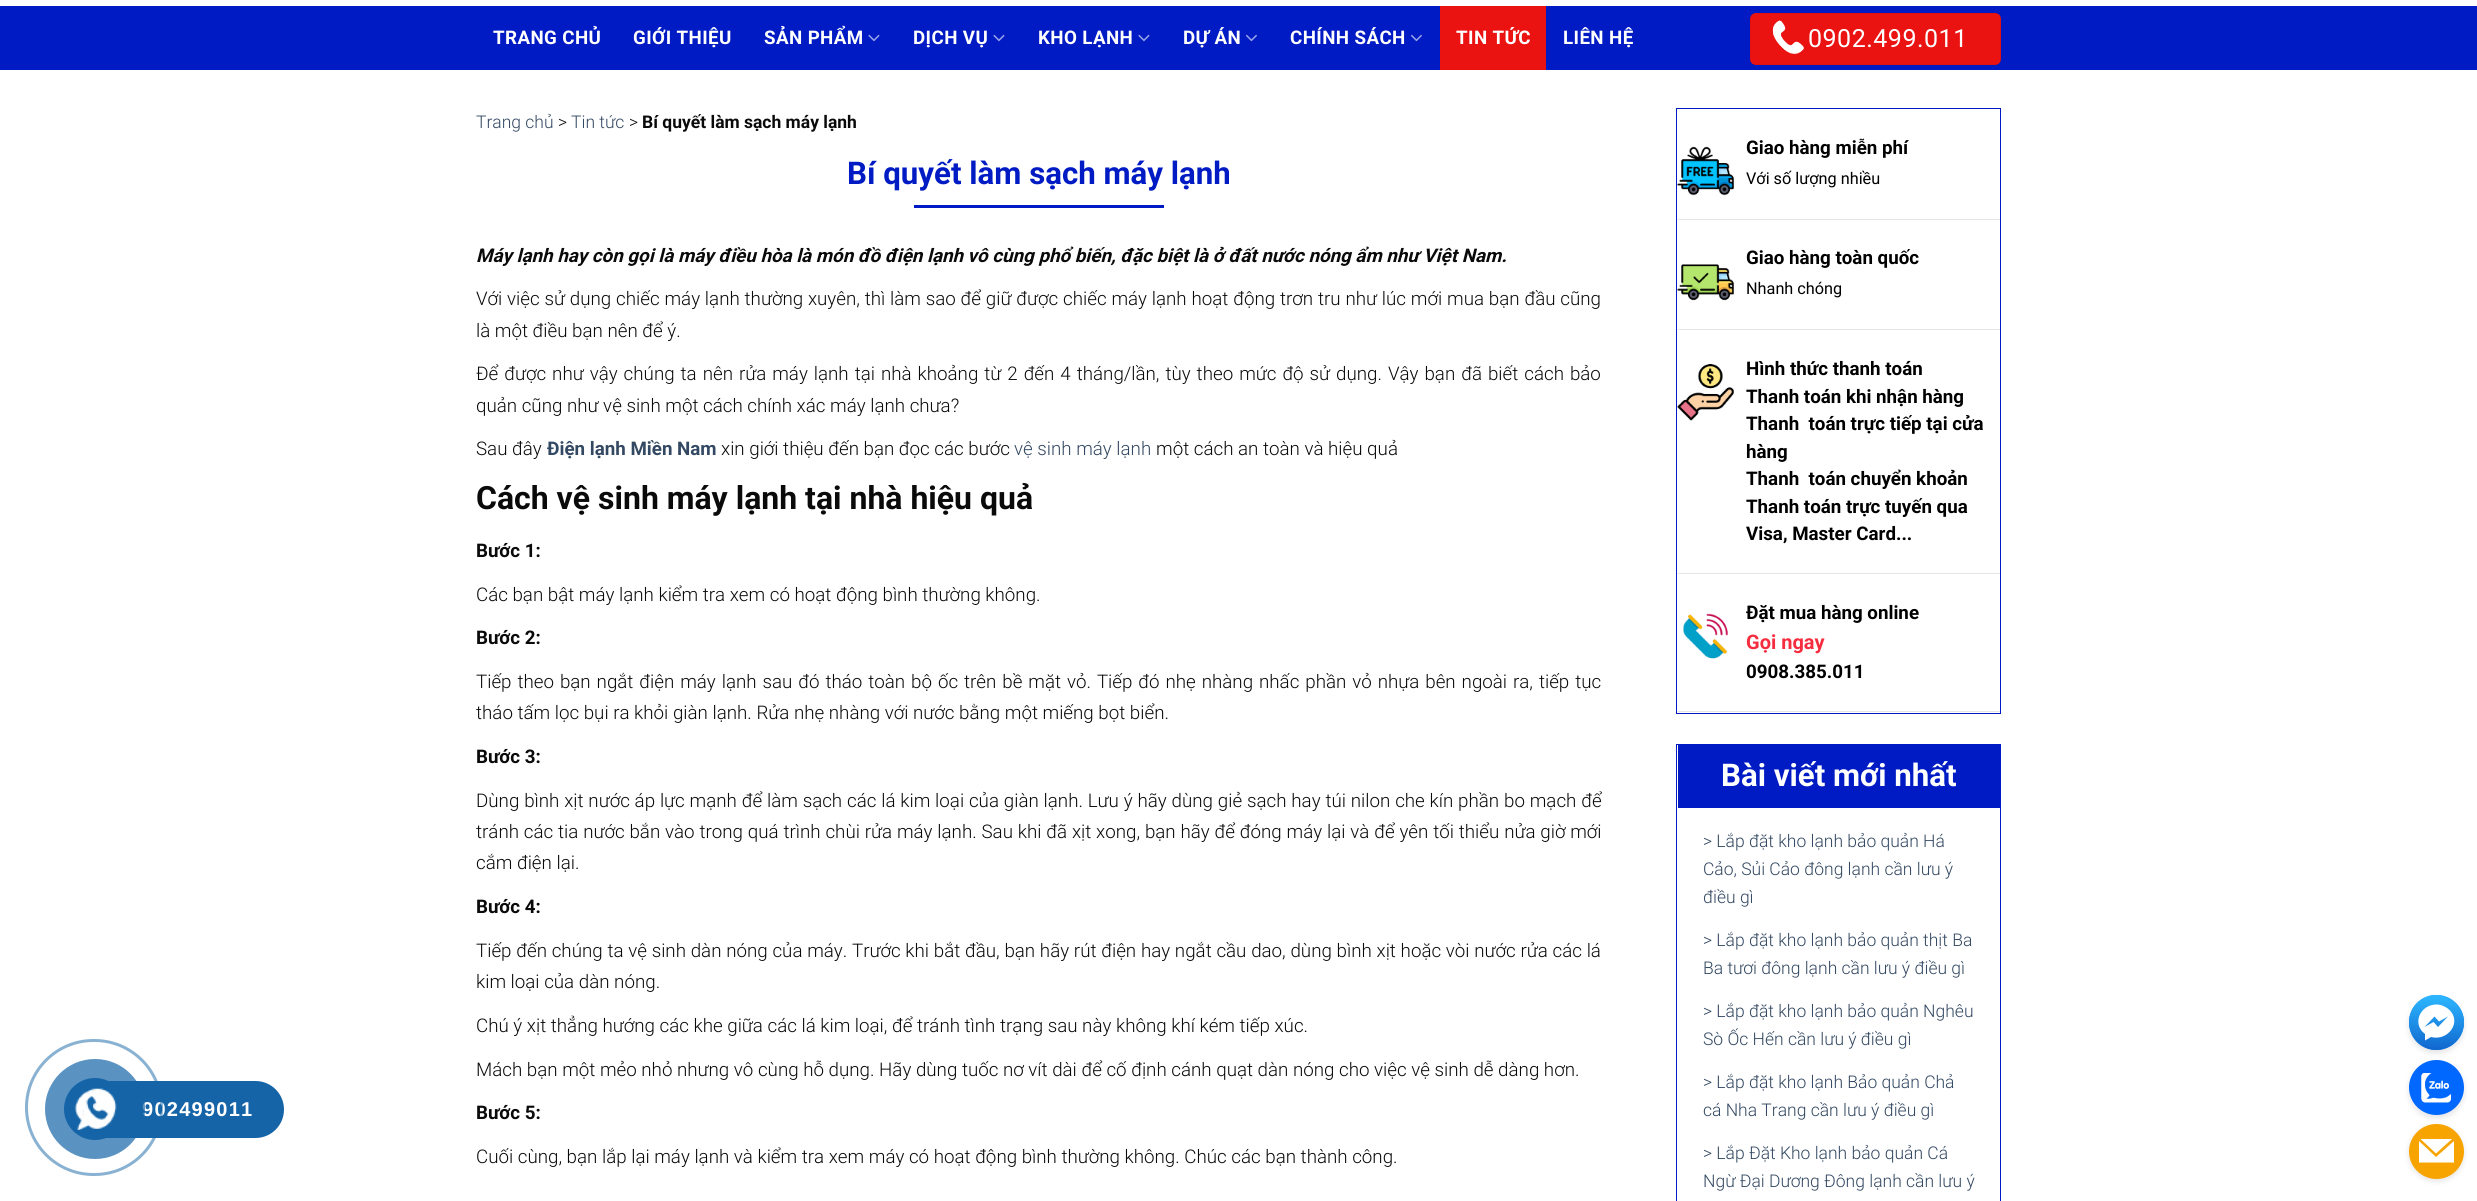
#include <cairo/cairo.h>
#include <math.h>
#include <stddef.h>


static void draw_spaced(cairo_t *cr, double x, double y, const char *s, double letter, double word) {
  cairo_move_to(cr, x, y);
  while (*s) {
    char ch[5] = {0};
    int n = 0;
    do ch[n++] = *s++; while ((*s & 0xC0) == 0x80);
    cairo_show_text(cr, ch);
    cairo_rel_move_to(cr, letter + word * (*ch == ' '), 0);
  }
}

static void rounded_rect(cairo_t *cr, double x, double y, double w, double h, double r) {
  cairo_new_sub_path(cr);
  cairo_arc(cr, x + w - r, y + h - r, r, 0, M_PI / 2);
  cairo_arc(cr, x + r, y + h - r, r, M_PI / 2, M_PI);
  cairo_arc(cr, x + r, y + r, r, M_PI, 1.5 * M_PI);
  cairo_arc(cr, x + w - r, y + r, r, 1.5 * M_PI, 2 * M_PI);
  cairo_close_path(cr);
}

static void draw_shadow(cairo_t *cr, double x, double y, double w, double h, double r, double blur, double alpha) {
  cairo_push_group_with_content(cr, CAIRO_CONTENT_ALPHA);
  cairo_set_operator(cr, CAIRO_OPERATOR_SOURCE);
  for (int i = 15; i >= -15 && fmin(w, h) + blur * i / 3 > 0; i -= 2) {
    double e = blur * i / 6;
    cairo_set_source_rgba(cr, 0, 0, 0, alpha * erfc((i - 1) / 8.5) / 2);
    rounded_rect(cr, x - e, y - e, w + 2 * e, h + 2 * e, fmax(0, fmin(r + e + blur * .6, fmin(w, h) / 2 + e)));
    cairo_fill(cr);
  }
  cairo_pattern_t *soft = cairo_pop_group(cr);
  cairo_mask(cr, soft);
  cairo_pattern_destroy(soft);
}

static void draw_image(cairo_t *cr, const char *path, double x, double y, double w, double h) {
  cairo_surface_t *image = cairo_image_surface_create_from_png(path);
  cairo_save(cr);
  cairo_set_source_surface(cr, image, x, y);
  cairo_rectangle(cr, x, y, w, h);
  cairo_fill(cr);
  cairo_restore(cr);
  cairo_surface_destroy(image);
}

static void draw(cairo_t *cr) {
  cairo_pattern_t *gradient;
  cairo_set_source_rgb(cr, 1, 1, 1);
  cairo_paint(cr);
  cairo_set_source_rgb(cr, 0, 27 / 255.0, 195 / 255.0);
  cairo_rectangle(cr, 0, 6, 2477, 64);
  cairo_fill(cr);
  draw_image(cr, "images/1.png", 868, 34, 12, 8);
  draw_image(cr, "images/1.png", 993, 34, 12, 8);
  draw_image(cr, "images/1.png", 1138, 34, 12, 8);
  draw_image(cr, "images/2.png", 1245, 34, 12, 8);
  draw_image(cr, "images/2.png", 1410, 34, 12, 8);
  cairo_set_source_rgb(cr, 235 / 255.0, 18 / 255.0, 18 / 255.0);
  cairo_rectangle(cr, 1440, 6, 106, 64);
  cairo_fill(cr);
  rounded_rect(cr, 1750, 13, 251, 52, 6);
  cairo_fill(cr);
  cairo_rectangle(cr, 1750.5, 13.5, 250, 51);
  cairo_set_source_rgba(cr, 0, 0, 0, 0.05);
  cairo_set_line_width(cr, 1);
  cairo_stroke(cr);
  draw_image(cr, "images/3.png", 1772, 20, 32, 34);
  cairo_set_source_rgb(cr, 21 / 255.0, 100 / 255.0, 167 / 255.0);
  rounded_rect(cr, 78, 1081, 206, 57, 28.5);
  cairo_fill(cr);
  cairo_set_source_rgb(cr, 0, 27 / 255.0, 195 / 255.0);
  cairo_rectangle(cr, 914, 205, 250, 3);
  cairo_fill(cr);
  cairo_rectangle(cr, 1676.5, 108.5, 324, 605);
  cairo_stroke(cr);
  cairo_set_source_rgb(cr, 229 / 255.0, 229 / 255.0, 229 / 255.0);
  cairo_rectangle(cr, 1678, 219, 322, 1);
  cairo_fill(cr);
  draw_image(cr, "images/5.png", 1677, 146, 57, 50);
  cairo_rectangle(cr, 1678, 329, 322, 1);
  cairo_fill(cr);
  draw_image(cr, "images/6.png", 1677, 264, 57, 37);
  cairo_rectangle(cr, 1678, 573, 322, 1);
  cairo_fill(cr);
  draw_image(cr, "images/7.png", 1677, 364, 57, 57);
  cairo_rectangle(cr, 1678, 711, 322, 1);
  cairo_fill(cr);
  draw_image(cr, "images/8.png", 1683, 613, 45, 46);
  cairo_rectangle(cr, 1676.5, 744.5, 324, 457);
  cairo_set_source_rgb(cr, 0, 27 / 255.0, 195 / 255.0);
  cairo_stroke(cr);
  cairo_rectangle(cr, 1678, 745, 322, 63);
  cairo_fill(cr);
  cairo_set_source_rgb(cr, 0, 0, 0);
  draw_shadow(cr, 2409, 998, 55, 55, 27.5, 3, 0.11);
  cairo_set_source_rgb(cr, 0, 132 / 255.0, 1);
  cairo_arc(cr, 2436.5, 1022.5, 27.5, 0, 2 * M_PI);
  cairo_fill(cr);
  gradient = cairo_pattern_create_linear(2436, 1049, 2436, 996);
  cairo_pattern_add_color_stop_rgba(gradient, 0, 17 / 255.0, 104 / 255.0, 207 / 255.0, 1);
  cairo_pattern_add_color_stop_rgba(gradient, 1, 44 / 255.0, 183 / 255.0, 1, 1);
  cairo_set_source(cr, gradient);
  cairo_pattern_destroy(gradient);
  cairo_new_path(cr);
  cairo_move_to(cr, 2464, 1022);
  cairo_curve_to(cr, 2464, 1007, 2451, 995, 2436, 995);
  cairo_curve_to(cr, 2421, 995, 2409, 1007, 2409, 1022);
  cairo_curve_to(cr, 2409, 1038, 2421, 1050, 2436, 1050);
  cairo_curve_to(cr, 2451, 1050, 2464, 1038, 2464, 1022);
  cairo_close_path(cr);
  cairo_fill(cr);
  cairo_set_source_rgb(cr, 1, 1, 1);
  cairo_set_fill_rule(cr, CAIRO_FILL_RULE_EVEN_ODD);
  cairo_new_path(cr);
  cairo_move_to(cr, 2436.5, 1004.5);
  cairo_curve_to(cr, 2420, 1004.5, 2411.5, 1024, 2425, 1034);
  cairo_line_to(cr, 2425, 1040.5);
  cairo_line_to(cr, 2431, 1037);
  cairo_curve_to(cr, 2448, 1041.5, 2462.5, 1022, 2449, 1009.5);
  cairo_curve_to(cr, 2445.5, 1006.5, 2441, 1004.5, 2436.5, 1004.5);
  cairo_close_path(cr);
  cairo_move_to(cr, 2438, 1027);
  cairo_line_to(cr, 2433.5, 1022);
  cairo_line_to(cr, 2424.5, 1027);
  cairo_line_to(cr, 2434.5, 1016.5);
  cairo_line_to(cr, 2439, 1021.5);
  cairo_line_to(cr, 2448, 1016.5);
  cairo_close_path(cr);
  cairo_fill(cr);
  cairo_set_source_rgb(cr, 0, 0, 0);
  draw_shadow(cr, 2409, 1063, 55, 55, 27.5, 3, 0.11);
  cairo_set_source_rgb(cr, 0, 104 / 255.0, 1);
  cairo_arc(cr, 2436.5, 1087.5, 27.5, 0, 2 * M_PI);
  cairo_fill(cr);
  draw_image(cr, "images/9.png", 2421, 1073, 30, 30);
  cairo_set_source_rgb(cr, 0, 0, 0);
  draw_shadow(cr, 2409, 1126, 55, 55, 27.5, 3, 0.11);
  cairo_set_source_rgb(cr, 247 / 255.0, 164 / 255.0, 0);
  cairo_arc(cr, 2436.5, 1151.5, 27.5, 0, 2 * M_PI);
  cairo_fill(cr);
  cairo_set_source_rgb(cr, 1, 1, 1);
  cairo_new_path(cr);
  cairo_move_to(cr, 2420.5, 1139);
  cairo_line_to(cr, 2452, 1139);
  cairo_line_to(cr, 2436, 1153.5);
  cairo_close_path(cr);
  cairo_move_to(cr, 2419, 1141);
  cairo_line_to(cr, 2436, 1157);
  cairo_line_to(cr, 2454, 1141);
  cairo_line_to(cr, 2454, 1162.5);
  cairo_line_to(cr, 2419, 1162.5);
  cairo_close_path(cr);
  cairo_fill(cr);
  cairo_select_font_face(cr, "Roboto", CAIRO_FONT_SLANT_NORMAL, CAIRO_FONT_WEIGHT_BOLD);
  cairo_set_font_size(cr, 18.75);
  draw_spaced(cr, 493, 44, "TRANG CHỦ", 0.4, 0);
  draw_spaced(cr, 633, 44, "GIỚI THIỆU", 0.4, 0);
  draw_spaced(cr, 764, 44, "SẢN PHẨM", 0.4, 0);
  draw_spaced(cr, 913, 44, "DỊCH VỤ", 0.4, 0);
  draw_spaced(cr, 1038, 44, "KHO LẠNH", 0.4, 0);
  draw_spaced(cr, 1183, 44, "DỰ ÁN", 0.4, 0);
  draw_spaced(cr, 1290, 44, "CHÍNH SÁCH", 0.4, 0);
  draw_spaced(cr, 1456, 44, "TIN TỨC", 0.4, 0);
  draw_spaced(cr, 1563, 44, "LIÊN HỆ", 0.4, 0);
  cairo_select_font_face(cr, "Roboto", CAIRO_FONT_SLANT_NORMAL, CAIRO_FONT_WEIGHT_NORMAL);
  cairo_set_font_size(cr, 25);
  draw_spaced(cr, 1808, 47, "0902.499.011", 0.5, 0);
  cairo_select_font_face(cr, "Liberation Sans", CAIRO_FONT_SLANT_NORMAL, CAIRO_FONT_WEIGHT_BOLD);
  cairo_set_font_size(cr, 20);
  draw_spaced(cr, 142, 1116, "902499011", 1.25, 0);
  rounded_rect(cr, 26.5, 1040.5, 135, 134, 67);
  cairo_set_source_rgba(cr, 21 / 255.0, 100 / 255.0, 167 / 255.0, 0.5);
  cairo_set_line_width(cr, 3);
  cairo_stroke(cr);
  cairo_set_source_rgba(cr, 21 / 255.0, 100 / 255.0, 167 / 255.0, 0.7);
  cairo_arc(cr, 95, 1109, 50, 0, 2 * M_PI);
  cairo_fill(cr);
  cairo_set_source_rgb(cr, 21 / 255.0, 100 / 255.0, 167 / 255.0);
  cairo_arc(cr, 95, 1109, 31, 0, 2 * M_PI);
  cairo_fill(cr);
  draw_image(cr, "images/4.png", 74, 1088, 43, 42);
  cairo_select_font_face(cr, "Roboto Light", CAIRO_FONT_SLANT_NORMAL, CAIRO_FONT_WEIGHT_NORMAL);
  cairo_set_font_size(cr, 17.5);
  cairo_set_source_rgb(cr, 51 / 255.0, 72 / 255.0, 98 / 255.0);
  cairo_move_to(cr, 476, 128);
  cairo_show_text(cr, "Trang chủ");
  cairo_set_source_rgb(cr, 10 / 255.0, 10 / 255.0, 10 / 255.0);
  cairo_move_to(cr, 558, 128);
  cairo_show_text(cr, ">");
  cairo_set_source_rgb(cr, 51 / 255.0, 72 / 255.0, 98 / 255.0);
  cairo_move_to(cr, 571, 128);
  cairo_show_text(cr, "Tin tức");
  cairo_set_source_rgb(cr, 10 / 255.0, 10 / 255.0, 10 / 255.0);
  cairo_move_to(cr, 629, 128);
  cairo_show_text(cr, ">");
  cairo_select_font_face(cr, "Roboto", CAIRO_FONT_SLANT_NORMAL, CAIRO_FONT_WEIGHT_BOLD);
  cairo_move_to(cr, 642, 128);
  cairo_show_text(cr, "Bí quyết làm sạch máy lạnh");
  cairo_set_font_size(cr, 31.25);
  cairo_set_source_rgb(cr, 0, 27 / 255.0, 195 / 255.0);
  cairo_move_to(cr, 847, 184);
  cairo_show_text(cr, "Bí quyết làm sạch máy lạnh");
  cairo_select_font_face(cr, "Roboto", CAIRO_FONT_SLANT_ITALIC, CAIRO_FONT_WEIGHT_BOLD);
  cairo_set_font_size(cr, 18.75);
  cairo_set_source_rgb(cr, 10 / 255.0, 10 / 255.0, 10 / 255.0);
  cairo_move_to(cr, 476, 262);
  cairo_show_text(cr, "Máy lạnh hay còn gọi là máy điều hòa là món đồ điện lạnh vô cùng phổ biến, đặc biệt là ở đất nước nóng ẩm như Việt Nam.");
  cairo_select_font_face(cr, "Roboto Light", CAIRO_FONT_SLANT_NORMAL, CAIRO_FONT_WEIGHT_NORMAL);
  draw_spaced(cr, 476, 305, "Với việc sử dụng chiếc máy lạnh thường xuyên, thì làm sao để giữ được chiếc máy lạnh hoạt động trơn tru như lúc mới mua bạn đầu cũng", 0, 0.25);
  cairo_move_to(cr, 476, 337);
  cairo_show_text(cr, "là một điều bạn nên để ý.");
  draw_spaced(cr, 476, 380, "Để được như vậy chúng ta nên rửa máy lạnh tại nhà khoảng từ 2 đến 4 tháng/lần, tùy theo mức độ sử dụng. Vậy bạn đã biết cách bảo", 0, 1.4);
  cairo_move_to(cr, 476, 412);
  cairo_show_text(cr, "quản cũng như vệ sinh một cách chính xác máy lạnh chưa?");
  cairo_move_to(cr, 476, 455);
  cairo_show_text(cr, "Sau đây");
  cairo_select_font_face(cr, "Roboto", CAIRO_FONT_SLANT_NORMAL, CAIRO_FONT_WEIGHT_BOLD);
  cairo_set_source_rgb(cr, 51 / 255.0, 72 / 255.0, 98 / 255.0);
  cairo_move_to(cr, 547, 455);
  cairo_show_text(cr, "Điện lạnh Miền Nam");
  cairo_select_font_face(cr, "Roboto Light", CAIRO_FONT_SLANT_NORMAL, CAIRO_FONT_WEIGHT_NORMAL);
  cairo_set_source_rgb(cr, 10 / 255.0, 10 / 255.0, 10 / 255.0);
  cairo_move_to(cr, 721, 455);
  cairo_show_text(cr, "xin giới thiệu đến bạn đọc các bước");
  cairo_set_source_rgb(cr, 51 / 255.0, 72 / 255.0, 98 / 255.0);
  cairo_move_to(cr, 1014, 455);
  cairo_show_text(cr, "vệ sinh máy lạnh");
  cairo_set_source_rgb(cr, 10 / 255.0, 10 / 255.0, 10 / 255.0);
  cairo_move_to(cr, 1156, 455);
  cairo_show_text(cr, "một cách an toàn và hiệu quả");
  cairo_select_font_face(cr, "Roboto", CAIRO_FONT_SLANT_NORMAL, CAIRO_FONT_WEIGHT_BOLD);
  cairo_set_font_size(cr, 32);
  cairo_move_to(cr, 476, 509);
  cairo_show_text(cr, "Cách vệ sinh máy lạnh tại nhà hiệu quả");
  cairo_set_font_size(cr, 18.75);
  cairo_move_to(cr, 476, 557);
  cairo_show_text(cr, "Bước 1:");
  cairo_select_font_face(cr, "Roboto Light", CAIRO_FONT_SLANT_NORMAL, CAIRO_FONT_WEIGHT_NORMAL);
  cairo_move_to(cr, 476, 601);
  cairo_show_text(cr, "Các bạn bật máy lạnh kiểm tra xem có hoạt động bình thường không.");
  cairo_select_font_face(cr, "Roboto", CAIRO_FONT_SLANT_NORMAL, CAIRO_FONT_WEIGHT_BOLD);
  cairo_move_to(cr, 476, 644);
  cairo_show_text(cr, "Bước 2:");
  cairo_select_font_face(cr, "Roboto Light", CAIRO_FONT_SLANT_NORMAL, CAIRO_FONT_WEIGHT_NORMAL);
  draw_spaced(cr, 476, 688, "Tiếp theo bạn ngắt điện máy lạnh sau đó tháo toàn bộ ốc trên bề mặt vỏ. Tiếp đó nhẹ nhàng nhấc phần vỏ nhựa bên ngoài ra, tiếp tục", 0, 1.35);
  cairo_move_to(cr, 476, 719);
  cairo_show_text(cr, "tháo tấm lọc bụi ra khỏi giàn lạnh. Rửa nhẹ nhàng với nước bằng một miếng bọt biển.");
  cairo_select_font_face(cr, "Roboto", CAIRO_FONT_SLANT_NORMAL, CAIRO_FONT_WEIGHT_BOLD);
  cairo_move_to(cr, 476, 763);
  cairo_show_text(cr, "Bước 3:");
  cairo_select_font_face(cr, "Roboto Light", CAIRO_FONT_SLANT_NORMAL, CAIRO_FONT_WEIGHT_NORMAL);
  draw_spaced(cr, 476, 807, "Dùng bình xịt nước áp lực mạnh để làm sạch các lá kim loại của giàn lạnh. Lưu ý hãy dùng giẻ sạch hay túi nilon che kín phần bo mạch để", 0, 0.25);
  draw_spaced(cr, 476, 838, "tránh các tia nước bắn vào trong quá trình chùi rửa máy lạnh. Sau khi đã xịt xong, bạn hãy để đóng máy lại và để yên tối thiểu nửa giờ mới", 0, 0.25);
  cairo_move_to(cr, 476, 869);
  cairo_show_text(cr, "cắm điện lại.");
  cairo_select_font_face(cr, "Roboto", CAIRO_FONT_SLANT_NORMAL, CAIRO_FONT_WEIGHT_BOLD);
  cairo_move_to(cr, 476, 913);
  cairo_show_text(cr, "Bước 4:");
  cairo_select_font_face(cr, "Roboto Light", CAIRO_FONT_SLANT_NORMAL, CAIRO_FONT_WEIGHT_NORMAL);
  draw_spaced(cr, 476, 957, "Tiếp đến chúng ta vệ sinh dàn nóng của máy. Trước khi bắt đầu, bạn hãy rút điện hay ngắt cầu dao, dùng bình xịt hoặc vòi nước rửa các lá", 0, 0.15);
  cairo_move_to(cr, 476, 988);
  cairo_show_text(cr, "kim loại của dàn nóng.");
  cairo_move_to(cr, 476, 1032);
  cairo_show_text(cr, "Chú ý xịt thẳng hướng các khe giữa các lá kim loại, để tránh tình trạng sau này không khí kém tiếp xúc.");
  cairo_move_to(cr, 476, 1076);
  cairo_show_text(cr, "Mách bạn một mẻo nhỏ nhưng vô cùng hỗ dụng. Hãy dùng tuốc nơ vít dài để cố định cánh quạt dàn nóng cho việc vệ sinh dễ dàng hơn.");
  cairo_select_font_face(cr, "Roboto", CAIRO_FONT_SLANT_NORMAL, CAIRO_FONT_WEIGHT_BOLD);
  cairo_move_to(cr, 476, 1119);
  cairo_show_text(cr, "Bước 5:");
  cairo_select_font_face(cr, "Roboto Light", CAIRO_FONT_SLANT_NORMAL, CAIRO_FONT_WEIGHT_NORMAL);
  cairo_move_to(cr, 476, 1163);
  cairo_show_text(cr, "Cuối cùng, bạn lắp lại máy lạnh và kiểm tra xem máy có hoạt động bình thường không. Chúc các bạn thành công.");
  cairo_select_font_face(cr, "Roboto", CAIRO_FONT_SLANT_NORMAL, CAIRO_FONT_WEIGHT_BOLD);
  cairo_set_source_rgb(cr, 0, 0, 0);
  cairo_move_to(cr, 1746, 154);
  cairo_show_text(cr, "Giao hàng miễn phí");
  cairo_select_font_face(cr, "Roboto", CAIRO_FONT_SLANT_NORMAL, CAIRO_FONT_WEIGHT_NORMAL);
  cairo_set_font_size(cr, 16.25);
  cairo_move_to(cr, 1746, 184);
  cairo_show_text(cr, "Với số lượng nhiều");
  cairo_select_font_face(cr, "Roboto", CAIRO_FONT_SLANT_NORMAL, CAIRO_FONT_WEIGHT_BOLD);
  cairo_set_font_size(cr, 18.75);
  cairo_move_to(cr, 1746, 264);
  cairo_show_text(cr, "Giao hàng toàn quốc");
  cairo_select_font_face(cr, "Roboto", CAIRO_FONT_SLANT_NORMAL, CAIRO_FONT_WEIGHT_NORMAL);
  cairo_set_font_size(cr, 16.25);
  cairo_move_to(cr, 1746, 294);
  cairo_show_text(cr, "Nhanh chóng");
  cairo_select_font_face(cr, "Roboto", CAIRO_FONT_SLANT_NORMAL, CAIRO_FONT_WEIGHT_BOLD);
  cairo_set_font_size(cr, 18.75);
  cairo_move_to(cr, 1746, 375);
  cairo_show_text(cr, "Hình thức thanh toán");
  cairo_move_to(cr, 1746, 403);
  cairo_show_text(cr, "Thanh toán khi nhận hàng");
  cairo_move_to(cr, 1746, 430);
  cairo_show_text(cr, "Thanh  toán trực tiếp tại cửa");
  cairo_move_to(cr, 1746, 458);
  cairo_show_text(cr, "hàng");
  cairo_move_to(cr, 1746, 485);
  cairo_show_text(cr, "Thanh  toán chuyển khoản");
  cairo_move_to(cr, 1746, 513);
  cairo_show_text(cr, "Thanh toán trực tuyến qua");
  cairo_move_to(cr, 1746, 540);
  cairo_show_text(cr, "Visa, Master Card...");
  cairo_move_to(cr, 1746, 619);
  cairo_show_text(cr, "Đặt mua hàng online");
  cairo_set_font_size(cr, 20);
  cairo_set_source_rgb(cr, 246 / 255.0, 45 / 255.0, 62 / 255.0);
  cairo_move_to(cr, 1746, 649);
  cairo_show_text(cr, "Gọi ngay");
  cairo_set_font_size(cr, 18.75);
  cairo_set_source_rgb(cr, 0, 0, 0);
  cairo_move_to(cr, 1746, 678);
  cairo_show_text(cr, "0908.385.011");
  cairo_set_font_size(cr, 31.25);
  cairo_set_source_rgb(cr, 1, 1, 1);
  cairo_move_to(cr, 1721, 786);
  cairo_show_text(cr, "Bài viết mới nhất");
  cairo_select_font_face(cr, "Roboto Light", CAIRO_FONT_SLANT_NORMAL, CAIRO_FONT_WEIGHT_NORMAL);
  cairo_set_font_size(cr, 17.5);
  cairo_set_source_rgb(cr, 51 / 255.0, 72 / 255.0, 98 / 255.0);
  cairo_move_to(cr, 1703, 847);
  cairo_show_text(cr, "> Lắp đặt kho lạnh bảo quản Há");
  cairo_move_to(cr, 1703, 875);
  cairo_show_text(cr, "Cảo, Sủi Cảo đông lạnh cần lưu ý");
  cairo_move_to(cr, 1703, 903);
  cairo_show_text(cr, "điều gì");
  cairo_move_to(cr, 1703, 946);
  cairo_show_text(cr, "> Lắp đặt kho lạnh bảo quản thịt Ba");
  cairo_move_to(cr, 1703, 974);
  cairo_show_text(cr, "Ba tươi đông lạnh cần lưu ý điều gì");
  cairo_move_to(cr, 1703, 1017);
  cairo_show_text(cr, "> Lắp đặt kho lạnh bảo quản Nghêu");
  cairo_move_to(cr, 1703, 1045);
  cairo_show_text(cr, "Sò Ốc Hến cần lưu ý điều gì");
  cairo_move_to(cr, 1703, 1088);
  cairo_show_text(cr, "> Lắp đặt kho lạnh Bảo quản Chả");
  cairo_move_to(cr, 1703, 1116);
  cairo_show_text(cr, "cá Nha Trang cần lưu ý điều gì");
  cairo_move_to(cr, 1703, 1159);
  cairo_show_text(cr, "> Lắp Đặt Kho lạnh bảo quản Cá");
  cairo_move_to(cr, 1703, 1187);
  cairo_show_text(cr, "Ngừ Đại Dương Đông lạnh cần lưu ý");
}

int main(void) {
  cairo_surface_t *surface = cairo_image_surface_create(CAIRO_FORMAT_RGB24, 2477, 1201);
  cairo_t *cr = cairo_create(surface);
  cairo_font_options_t *options = cairo_font_options_create();
  cairo_font_options_set_hint_metrics(options, CAIRO_HINT_METRICS_OFF);
  cairo_font_options_set_hint_style(options, CAIRO_HINT_STYLE_NONE);
  cairo_set_font_options(cr, options);
  cairo_set_miter_limit(cr, 4);
  draw(cr);
  cairo_surface_write_to_png(surface, "out.png");
  cairo_font_options_destroy(options);
  cairo_destroy(cr);
  cairo_surface_destroy(surface);
  return 0;
}
